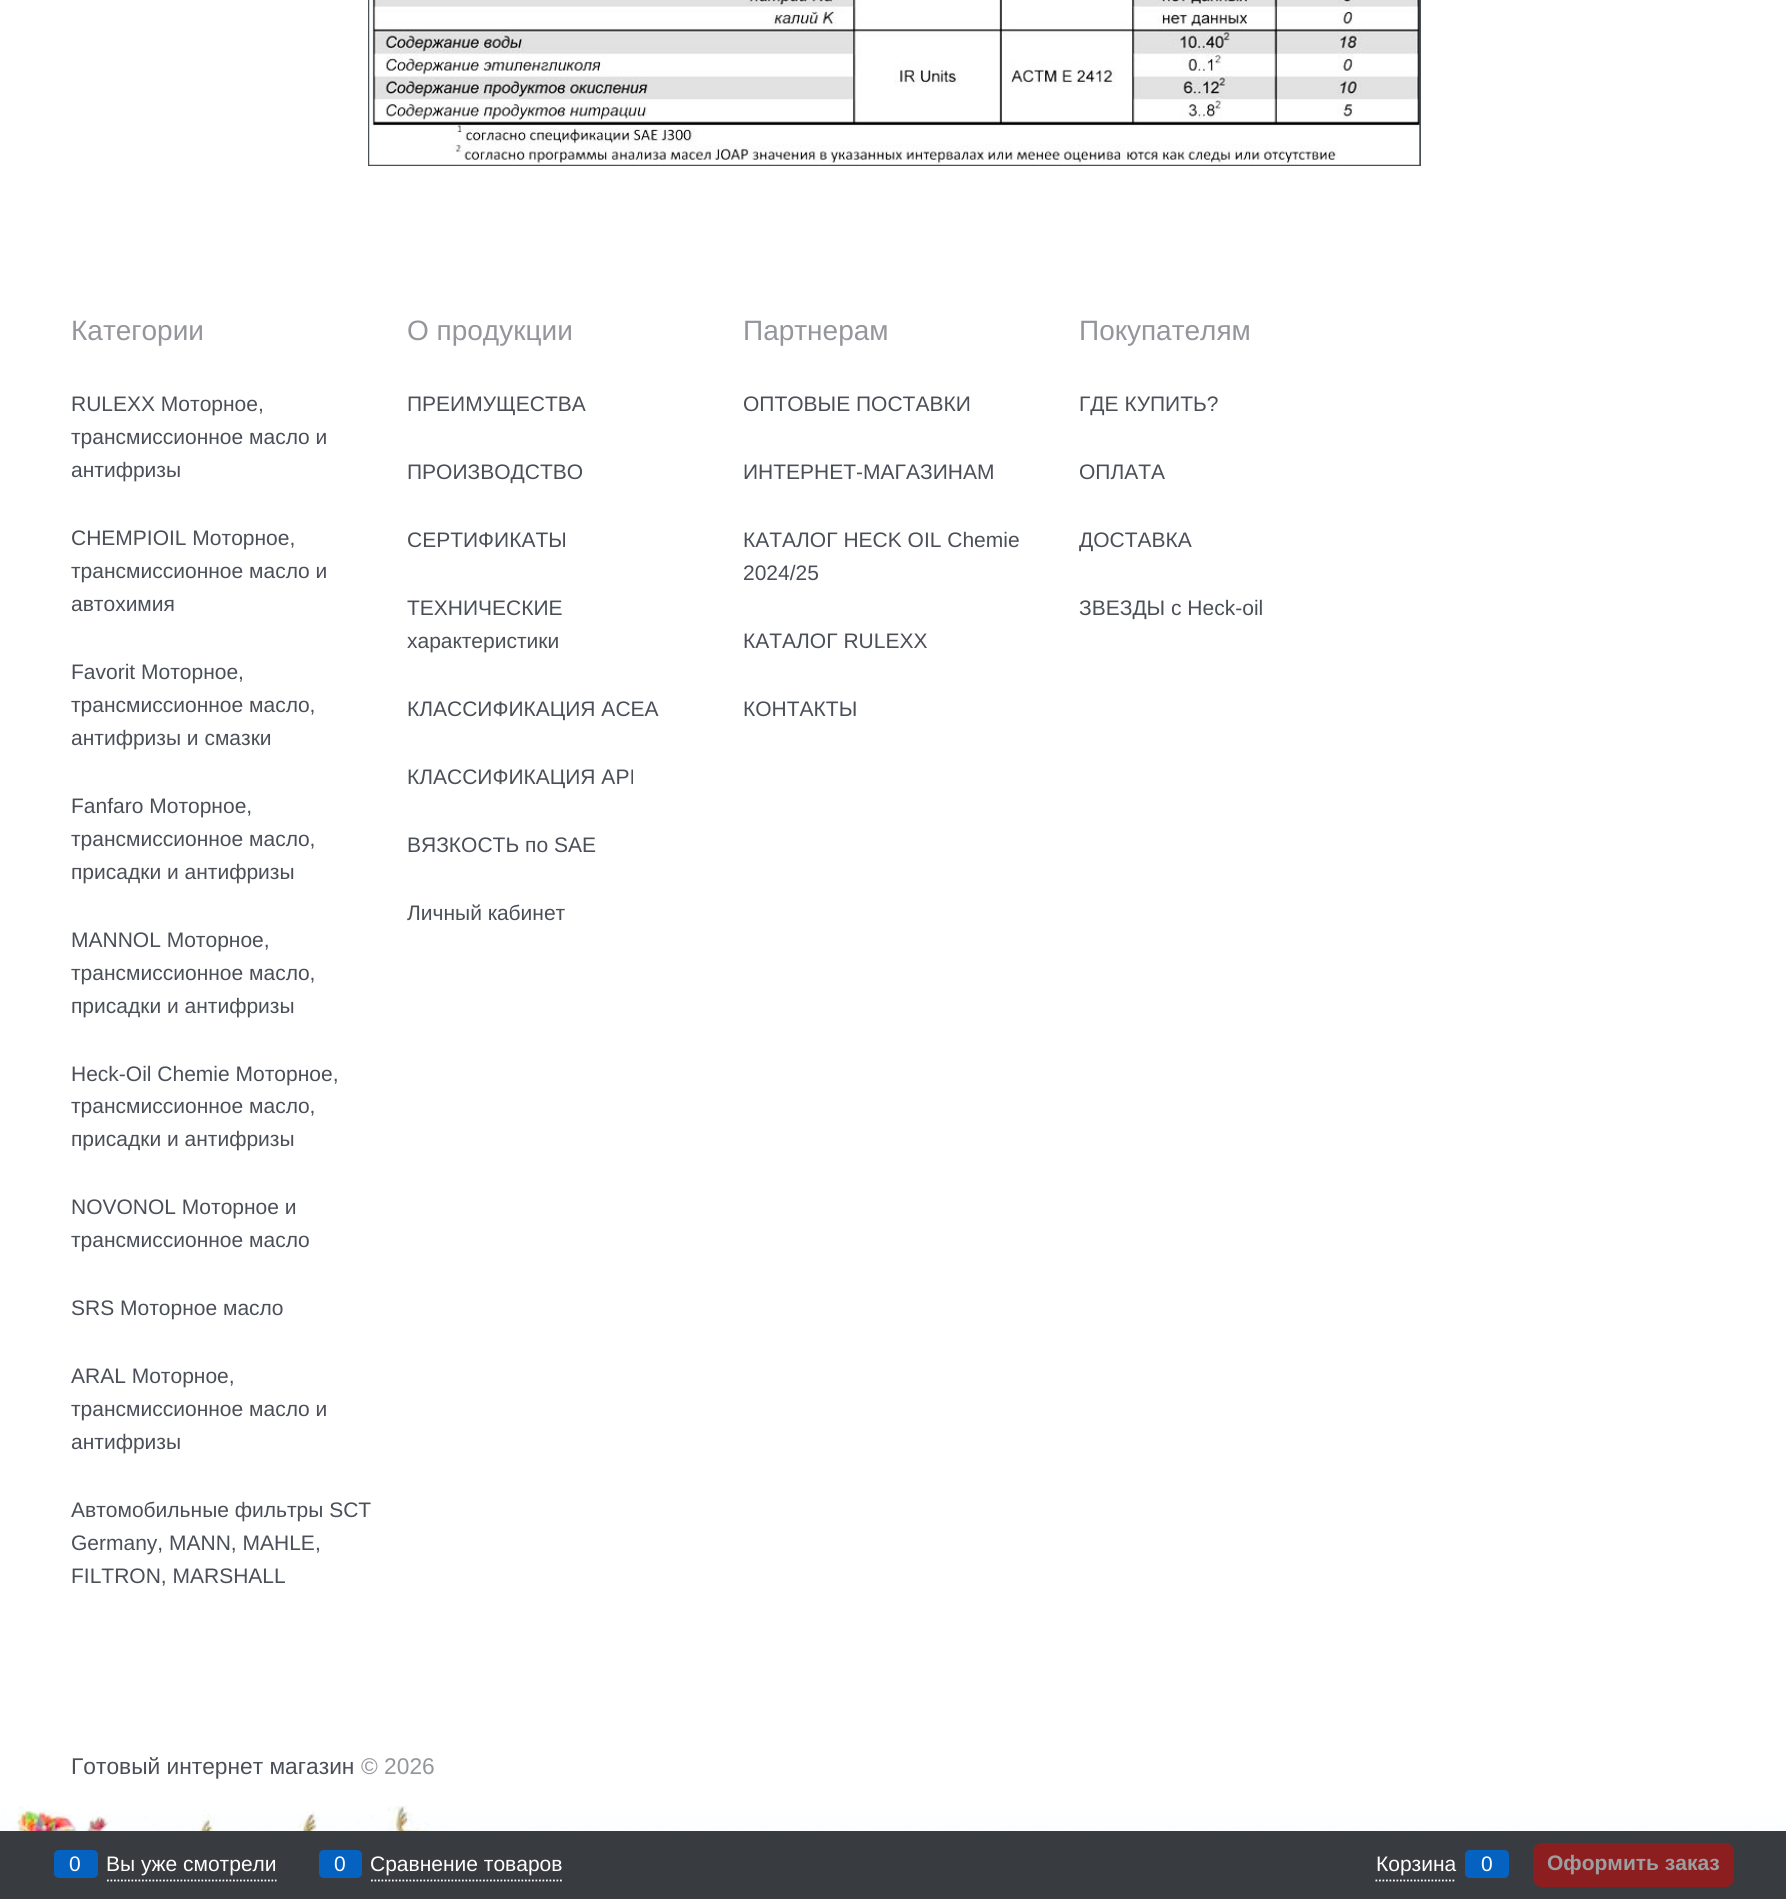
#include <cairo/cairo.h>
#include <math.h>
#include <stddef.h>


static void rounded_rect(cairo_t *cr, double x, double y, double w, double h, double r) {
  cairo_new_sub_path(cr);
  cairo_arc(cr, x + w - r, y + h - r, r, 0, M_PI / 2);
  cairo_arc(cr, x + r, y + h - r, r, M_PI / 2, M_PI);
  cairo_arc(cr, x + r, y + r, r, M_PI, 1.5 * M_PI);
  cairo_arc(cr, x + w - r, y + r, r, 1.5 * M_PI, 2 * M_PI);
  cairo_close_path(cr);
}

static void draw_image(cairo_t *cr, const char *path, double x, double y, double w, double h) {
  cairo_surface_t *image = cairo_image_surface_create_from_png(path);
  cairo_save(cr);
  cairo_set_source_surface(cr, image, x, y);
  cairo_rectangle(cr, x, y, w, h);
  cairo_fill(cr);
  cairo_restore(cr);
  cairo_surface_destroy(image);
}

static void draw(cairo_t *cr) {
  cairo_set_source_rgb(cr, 1, 1, 1);
  cairo_paint(cr);
  cairo_rectangle(cr, 369, -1, 1051, 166);
  cairo_set_source_rgb(cr, 75 / 255.0, 79 / 255.0, 88 / 255.0);
  cairo_stroke(cr);
  draw_image(cr, "images/1.png", 369, 0, 1051, 165);
  cairo_set_source_rgb(cr, 56 / 255.0, 60 / 255.0, 64 / 255.0);
  cairo_rectangle(cr, 0, 1831, 1786, 68);
  cairo_fill(cr);
  cairo_new_path(cr);
  cairo_move_to(cr, 107, 1880.5);
  cairo_line_to(cr, 276.5, 1880.5);
  cairo_set_source_rgb(cr, 1, 1, 1);
  cairo_set_line_width(cr, 1.8);
  cairo_set_dash(cr, (double[]){1.75, 1.75}, 2, 0);
  cairo_stroke(cr);
  cairo_set_source_rgb(cr, 6 / 255.0, 98 / 255.0, 193 / 255.0);
  rounded_rect(cr, 54, 1850, 44, 28, 5);
  cairo_fill(cr);
  cairo_new_path(cr);
  cairo_move_to(cr, 371, 1880.5);
  cairo_line_to(cr, 563.5, 1880.5);
  cairo_set_source_rgb(cr, 1, 1, 1);
  cairo_stroke(cr);
  cairo_set_source_rgb(cr, 6 / 255.0, 98 / 255.0, 193 / 255.0);
  rounded_rect(cr, 319, 1850, 43, 28, 5);
  cairo_fill(cr);
  cairo_new_path(cr);
  cairo_move_to(cr, 1375.5, 1880.5);
  cairo_line_to(cr, 1456, 1880.5);
  cairo_set_source_rgb(cr, 1, 1, 1);
  cairo_stroke(cr);
  cairo_set_source_rgb(cr, 6 / 255.0, 98 / 255.0, 193 / 255.0);
  rounded_rect(cr, 1465, 1850, 44, 28, 5);
  cairo_fill(cr);
  cairo_set_source_rgb(cr, 141 / 255.0, 30 / 255.0, 32 / 255.0);
  rounded_rect(cr, 1533, 1843, 201, 44, 9);
  cairo_fill(cr);
  draw_image(cr, "images/2.png", 0, 1806, 1786, 25);
  cairo_select_font_face(cr, "Liberation Sans", CAIRO_FONT_SLANT_NORMAL, CAIRO_FONT_WEIGHT_NORMAL);
  cairo_set_font_size(cr, 28);
  cairo_set_source_rgb(cr, 148 / 255.0, 150 / 255.0, 155 / 255.0);
  cairo_move_to(cr, 71, 340);
  cairo_show_text(cr, "Категории");
  cairo_set_font_size(cr, 21);
  cairo_set_source_rgb(cr, 75 / 255.0, 79 / 255.0, 88 / 255.0);
  cairo_move_to(cr, 71, 411);
  cairo_show_text(cr, "RULEXX Моторное,");
  cairo_move_to(cr, 71, 444);
  cairo_show_text(cr, "трансмиссионное масло и");
  cairo_move_to(cr, 71, 477);
  cairo_show_text(cr, "антифризы");
  cairo_move_to(cr, 71, 545);
  cairo_show_text(cr, "CHEMPIOIL Моторное,");
  cairo_move_to(cr, 71, 578);
  cairo_show_text(cr, "трансмиссионное масло и");
  cairo_move_to(cr, 71, 611);
  cairo_show_text(cr, "автохимия");
  cairo_move_to(cr, 71, 679);
  cairo_show_text(cr, "Favorit Моторное,");
  cairo_move_to(cr, 71, 712);
  cairo_show_text(cr, "трансмиссионное масло,");
  cairo_move_to(cr, 71, 745);
  cairo_show_text(cr, "антифризы и смазки");
  cairo_move_to(cr, 71, 813);
  cairo_show_text(cr, "Fanfaro Моторное,");
  cairo_move_to(cr, 71, 846);
  cairo_show_text(cr, "трансмиссионное масло,");
  cairo_move_to(cr, 71, 879);
  cairo_show_text(cr, "присадки и антифризы");
  cairo_move_to(cr, 71, 947);
  cairo_show_text(cr, "MANNOL Моторное,");
  cairo_move_to(cr, 71, 980);
  cairo_show_text(cr, "трансмиссионное масло,");
  cairo_move_to(cr, 71, 1013);
  cairo_show_text(cr, "присадки и антифризы");
  cairo_move_to(cr, 71, 1081);
  cairo_show_text(cr, "Heck-Oil Chemie Моторное,");
  cairo_move_to(cr, 71, 1113);
  cairo_show_text(cr, "трансмиссионное масло,");
  cairo_move_to(cr, 71, 1146);
  cairo_show_text(cr, "присадки и антифризы");
  cairo_move_to(cr, 71, 1214);
  cairo_show_text(cr, "NOVONOL Моторное и");
  cairo_move_to(cr, 71, 1247);
  cairo_show_text(cr, "трансмиссионное масло");
  cairo_move_to(cr, 71, 1315);
  cairo_show_text(cr, "SRS Моторное масло");
  cairo_move_to(cr, 71, 1383);
  cairo_show_text(cr, "ARAL Моторное,");
  cairo_move_to(cr, 71, 1416);
  cairo_show_text(cr, "трансмиссионное масло и");
  cairo_move_to(cr, 71, 1449);
  cairo_show_text(cr, "антифризы");
  cairo_move_to(cr, 71, 1517);
  cairo_show_text(cr, "Автомобильные фильтры SCT");
  cairo_move_to(cr, 71, 1550);
  cairo_show_text(cr, "Germany, MANN, MAHLE,");
  cairo_move_to(cr, 71, 1583);
  cairo_show_text(cr, "FILTRON, MARSHALL");
  cairo_set_font_size(cr, 28);
  cairo_set_source_rgb(cr, 148 / 255.0, 150 / 255.0, 155 / 255.0);
  cairo_move_to(cr, 407, 340);
  cairo_show_text(cr, "О продукции");
  cairo_set_font_size(cr, 21);
  cairo_set_source_rgb(cr, 75 / 255.0, 79 / 255.0, 88 / 255.0);
  cairo_move_to(cr, 407, 411);
  cairo_show_text(cr, "ПРЕИМУЩЕСТВА");
  cairo_move_to(cr, 407, 479);
  cairo_show_text(cr, "ПРОИЗВОДСТВО");
  cairo_move_to(cr, 407, 547);
  cairo_show_text(cr, "СЕРТИФИКАТЫ");
  cairo_move_to(cr, 407, 615);
  cairo_show_text(cr, "ТЕХНИЧЕСКИЕ");
  cairo_move_to(cr, 407, 648);
  cairo_show_text(cr, "характеристики");
  cairo_move_to(cr, 407, 716);
  cairo_show_text(cr, "КЛАССИФИКАЦИЯ ACEA");
  cairo_move_to(cr, 407, 784);
  cairo_show_text(cr, "КЛАССИФИКАЦИЯ API");
  cairo_move_to(cr, 407, 852);
  cairo_show_text(cr, "ВЯЗКОСТЬ по SAE");
  cairo_move_to(cr, 407, 920);
  cairo_show_text(cr, "Личный кабинет");
  cairo_set_font_size(cr, 28);
  cairo_set_source_rgb(cr, 148 / 255.0, 150 / 255.0, 155 / 255.0);
  cairo_move_to(cr, 743, 340);
  cairo_show_text(cr, "Партнерам");
  cairo_set_font_size(cr, 21);
  cairo_set_source_rgb(cr, 75 / 255.0, 79 / 255.0, 88 / 255.0);
  cairo_move_to(cr, 743, 411);
  cairo_show_text(cr, "ОПТОВЫЕ ПОСТАВКИ");
  cairo_move_to(cr, 743, 479);
  cairo_show_text(cr, "ИНТЕРНЕТ-МАГАЗИНАМ");
  cairo_move_to(cr, 743, 547);
  cairo_show_text(cr, "КАТАЛОГ HECK OIL Chemie");
  cairo_move_to(cr, 743, 580);
  cairo_show_text(cr, "2024/25");
  cairo_move_to(cr, 743, 648);
  cairo_show_text(cr, "КАТАЛОГ RULEXX");
  cairo_move_to(cr, 743, 716);
  cairo_show_text(cr, "КОНТАКТЫ");
  cairo_set_font_size(cr, 28);
  cairo_set_source_rgb(cr, 148 / 255.0, 150 / 255.0, 155 / 255.0);
  cairo_move_to(cr, 1079, 340);
  cairo_show_text(cr, "Покупателям");
  cairo_set_font_size(cr, 21);
  cairo_set_source_rgb(cr, 75 / 255.0, 79 / 255.0, 88 / 255.0);
  cairo_move_to(cr, 1079, 411);
  cairo_show_text(cr, "ГДЕ КУПИТЬ?");
  cairo_move_to(cr, 1079, 479);
  cairo_show_text(cr, "ОПЛАТА");
  cairo_move_to(cr, 1079, 547);
  cairo_show_text(cr, "ДОСТАВКА");
  cairo_move_to(cr, 1079, 615);
  cairo_show_text(cr, "ЗВЕЗДЫ с Heck-oil");
  cairo_set_font_size(cr, 22.75);
  cairo_move_to(cr, 71, 1774);
  cairo_show_text(cr, "Готовый интернет магазин");
  cairo_set_source_rgb(cr, 148 / 255.0, 150 / 255.0, 155 / 255.0);
  cairo_move_to(cr, 361, 1774);
  cairo_show_text(cr, "© 2026");
  cairo_set_font_size(cr, 21);
  cairo_set_source_rgb(cr, 1, 1, 1);
  cairo_move_to(cr, 69, 1871);
  cairo_show_text(cr, "0");
  cairo_move_to(cr, 106, 1871);
  cairo_show_text(cr, "Вы уже смотрели");
  cairo_move_to(cr, 334, 1871);
  cairo_show_text(cr, "0");
  cairo_move_to(cr, 370, 1871);
  cairo_show_text(cr, "Сравнение товаров");
  cairo_move_to(cr, 1376, 1871);
  cairo_show_text(cr, "Корзина");
  cairo_move_to(cr, 1481, 1871);
  cairo_show_text(cr, "0");
  cairo_select_font_face(cr, "Liberation Sans", CAIRO_FONT_SLANT_NORMAL, CAIRO_FONT_WEIGHT_BOLD);
  cairo_set_source_rgb(cr, 156 / 255.0, 158 / 255.0, 160 / 255.0);
  cairo_move_to(cr, 1547, 1870);
  cairo_show_text(cr, "Оформить заказ");
}

int main(void) {
  cairo_surface_t *surface = cairo_image_surface_create(CAIRO_FORMAT_RGB24, 1786, 1899);
  cairo_t *cr = cairo_create(surface);
  cairo_font_options_t *options = cairo_font_options_create();
  cairo_font_options_set_hint_metrics(options, CAIRO_HINT_METRICS_OFF);
  cairo_font_options_set_hint_style(options, CAIRO_HINT_STYLE_NONE);
  cairo_set_font_options(cr, options);
  cairo_set_miter_limit(cr, 4);
  draw(cr);
  cairo_surface_write_to_png(surface, "out.png");
  cairo_font_options_destroy(options);
  cairo_destroy(cr);
  cairo_surface_destroy(surface);
  return 0;
}
